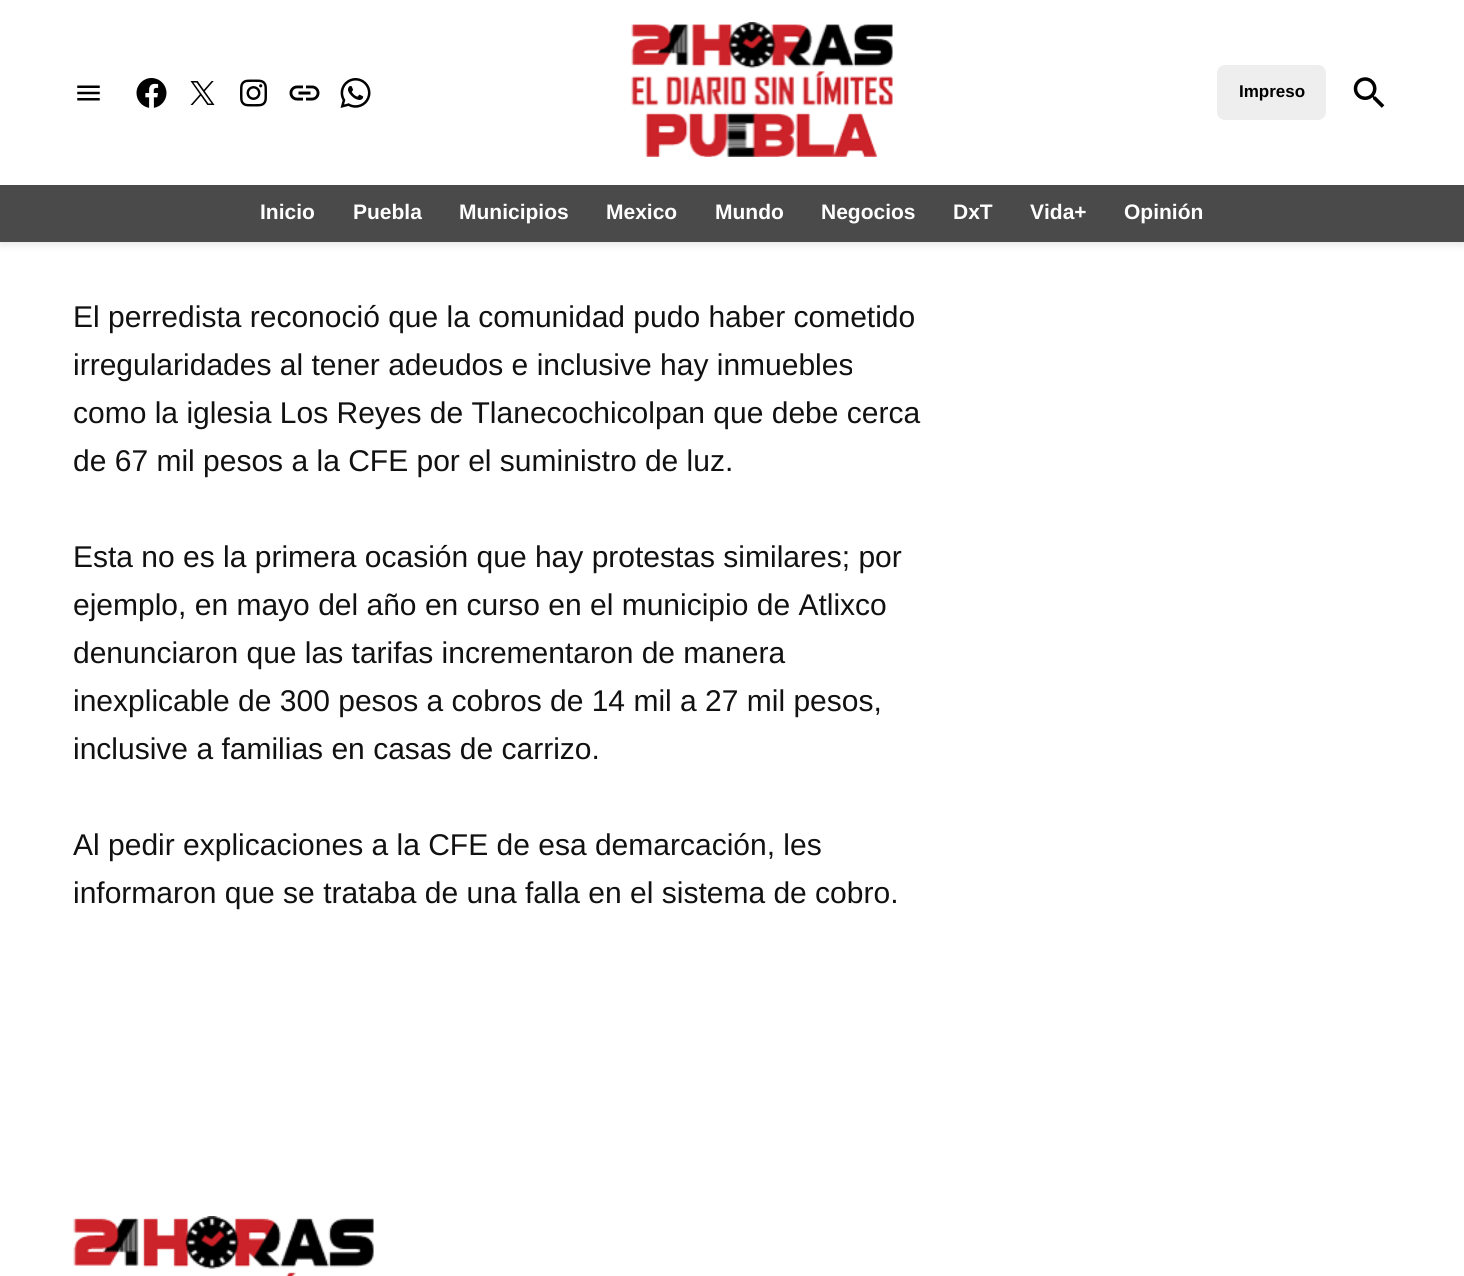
#include <cairo/cairo.h>
#include <math.h>
#include <stddef.h>


static void rounded_rect(cairo_t *cr, double x, double y, double w, double h, double r) {
  cairo_new_sub_path(cr);
  cairo_arc(cr, x + w - r, y + h - r, r, 0, M_PI / 2);
  cairo_arc(cr, x + r, y + h - r, r, M_PI / 2, M_PI);
  cairo_arc(cr, x + r, y + r, r, M_PI, 1.5 * M_PI);
  cairo_arc(cr, x + w - r, y + r, r, 1.5 * M_PI, 2 * M_PI);
  cairo_close_path(cr);
}

static void draw_shadow(cairo_t *cr, double x, double y, double w, double h, double r, double blur, double alpha) {
  cairo_push_group_with_content(cr, CAIRO_CONTENT_ALPHA);
  cairo_set_operator(cr, CAIRO_OPERATOR_SOURCE);
  for (int i = 15; i >= -15 && fmin(w, h) + blur * i / 3 > 0; i -= 2) {
    double e = blur * i / 6;
    cairo_set_source_rgba(cr, 0, 0, 0, alpha * erfc((i - 1) / 8.5) / 2);
    rounded_rect(cr, x - e, y - e, w + 2 * e, h + 2 * e, fmax(0, fmin(r + e + blur * .6, fmin(w, h) / 2 + e)));
    cairo_fill(cr);
  }
  cairo_pattern_t *soft = cairo_pop_group(cr);
  cairo_mask(cr, soft);
  cairo_pattern_destroy(soft);
}

static void draw_image(cairo_t *cr, const char *path, double x, double y, double w, double h) {
  cairo_surface_t *image = cairo_image_surface_create_from_png(path);
  cairo_save(cr);
  cairo_set_source_surface(cr, image, x, y);
  cairo_rectangle(cr, x, y, w, h);
  cairo_fill(cr);
  cairo_restore(cr);
  cairo_surface_destroy(image);
}

static void draw(cairo_t *cr) {
  cairo_set_source_rgb(cr, 1, 1, 1);
  cairo_paint(cr);
  cairo_set_source_rgb(cr, 0, 0, 0);
  draw_shadow(cr, 0, 3, 1464, 242, 0, 4, 0.1);
  cairo_set_source_rgb(cr, 1, 1, 1);
  cairo_rectangle(cr, 0, 0, 1464, 185);
  cairo_fill(cr);
  draw_image(cr, "images/1.png", 77, 85, 23, 16);
  draw_image(cr, "images/2.png", 136, 78, 31, 30);
  draw_image(cr, "images/3.png", 190, 81, 25, 24);
  draw_image(cr, "images/4.png", 240, 79, 27, 28);
  draw_image(cr, "images/5.png", 289, 85, 31, 16);
  draw_image(cr, "images/6.png", 340, 78, 31, 30);
  draw_image(cr, "images/7.png", 631, 22, 262, 135);
  cairo_set_source_rgb(cr, 238 / 255.0, 238 / 255.0, 238 / 255.0);
  rounded_rect(cr, 1217, 65, 109, 55, 8);
  cairo_fill(cr);
  draw_image(cr, "images/8.png", 1353, 77, 32, 31);
  cairo_set_source_rgb(cr, 74 / 255.0, 74 / 255.0, 74 / 255.0);
  cairo_rectangle(cr, 0, 185, 1464, 57);
  cairo_fill(cr);
  draw_image(cr, "images/9.png", 73, 1216, 301, 60);
  cairo_select_font_face(cr, "Liberation Sans", CAIRO_FONT_SLANT_NORMAL, CAIRO_FONT_WEIGHT_BOLD);
  cairo_set_font_size(cr, 17);
  cairo_set_source_rgb(cr, 0, 0, 0);
  cairo_move_to(cr, 1239, 97);
  cairo_show_text(cr, "Impreso");
  cairo_set_font_size(cr, 21);
  cairo_set_source_rgb(cr, 1, 1, 1);
  cairo_move_to(cr, 260, 219);
  cairo_show_text(cr, "Inicio");
  cairo_move_to(cr, 353, 219);
  cairo_show_text(cr, "Puebla");
  cairo_move_to(cr, 459, 219);
  cairo_show_text(cr, "Municipios");
  cairo_move_to(cr, 606, 219);
  cairo_show_text(cr, "Mexico");
  cairo_move_to(cr, 715, 219);
  cairo_show_text(cr, "Mundo");
  cairo_move_to(cr, 821, 219);
  cairo_show_text(cr, "Negocios");
  cairo_move_to(cr, 953, 219);
  cairo_show_text(cr, "DxT");
  cairo_move_to(cr, 1030, 219);
  cairo_show_text(cr, "Vida+");
  cairo_move_to(cr, 1124, 219);
  cairo_show_text(cr, "Opinión");
  cairo_select_font_face(cr, "Liberation Sans", CAIRO_FONT_SLANT_NORMAL, CAIRO_FONT_WEIGHT_NORMAL);
  cairo_set_font_size(cr, 30);
  cairo_set_source_rgb(cr, 17 / 255.0, 17 / 255.0, 17 / 255.0);
  cairo_move_to(cr, 73, 327);
  cairo_show_text(cr, "El perredista reconoció que la comunidad pudo haber cometido");
  cairo_move_to(cr, 73, 375);
  cairo_show_text(cr, "irregularidades al tener adeudos e inclusive hay inmuebles");
  cairo_move_to(cr, 73, 423);
  cairo_show_text(cr, "como la iglesia Los Reyes de Tlanecochicolpan que debe cerca");
  cairo_move_to(cr, 73, 471);
  cairo_show_text(cr, "de 67 mil pesos a la CFE por el suministro de luz.");
  cairo_move_to(cr, 73, 567);
  cairo_show_text(cr, "Esta no es la primera ocasión que hay protestas similares; por");
  cairo_move_to(cr, 73, 615);
  cairo_show_text(cr, "ejemplo, en mayo del año en curso en el municipio de Atlixco");
  cairo_move_to(cr, 73, 663);
  cairo_show_text(cr, "denunciaron que las tarifas incrementaron de manera");
  cairo_move_to(cr, 73, 711);
  cairo_show_text(cr, "inexplicable de 300 pesos a cobros de 14 mil a 27 mil pesos,");
  cairo_move_to(cr, 73, 759);
  cairo_show_text(cr, "inclusive a familias en casas de carrizo.");
  cairo_move_to(cr, 73, 855);
  cairo_show_text(cr, "Al pedir explicaciones a la CFE de esa demarcación, les");
  cairo_move_to(cr, 73, 903);
  cairo_show_text(cr, "informaron que se trataba de una falla en el sistema de cobro.");
}

int main(void) {
  cairo_surface_t *surface = cairo_image_surface_create(CAIRO_FORMAT_RGB24, 1464, 1276);
  cairo_t *cr = cairo_create(surface);
  cairo_font_options_t *options = cairo_font_options_create();
  cairo_font_options_set_hint_metrics(options, CAIRO_HINT_METRICS_OFF);
  cairo_font_options_set_hint_style(options, CAIRO_HINT_STYLE_NONE);
  cairo_set_font_options(cr, options);
  cairo_set_miter_limit(cr, 4);
  draw(cr);
  cairo_surface_write_to_png(surface, "out.png");
  cairo_font_options_destroy(options);
  cairo_destroy(cr);
  cairo_surface_destroy(surface);
  return 0;
}
